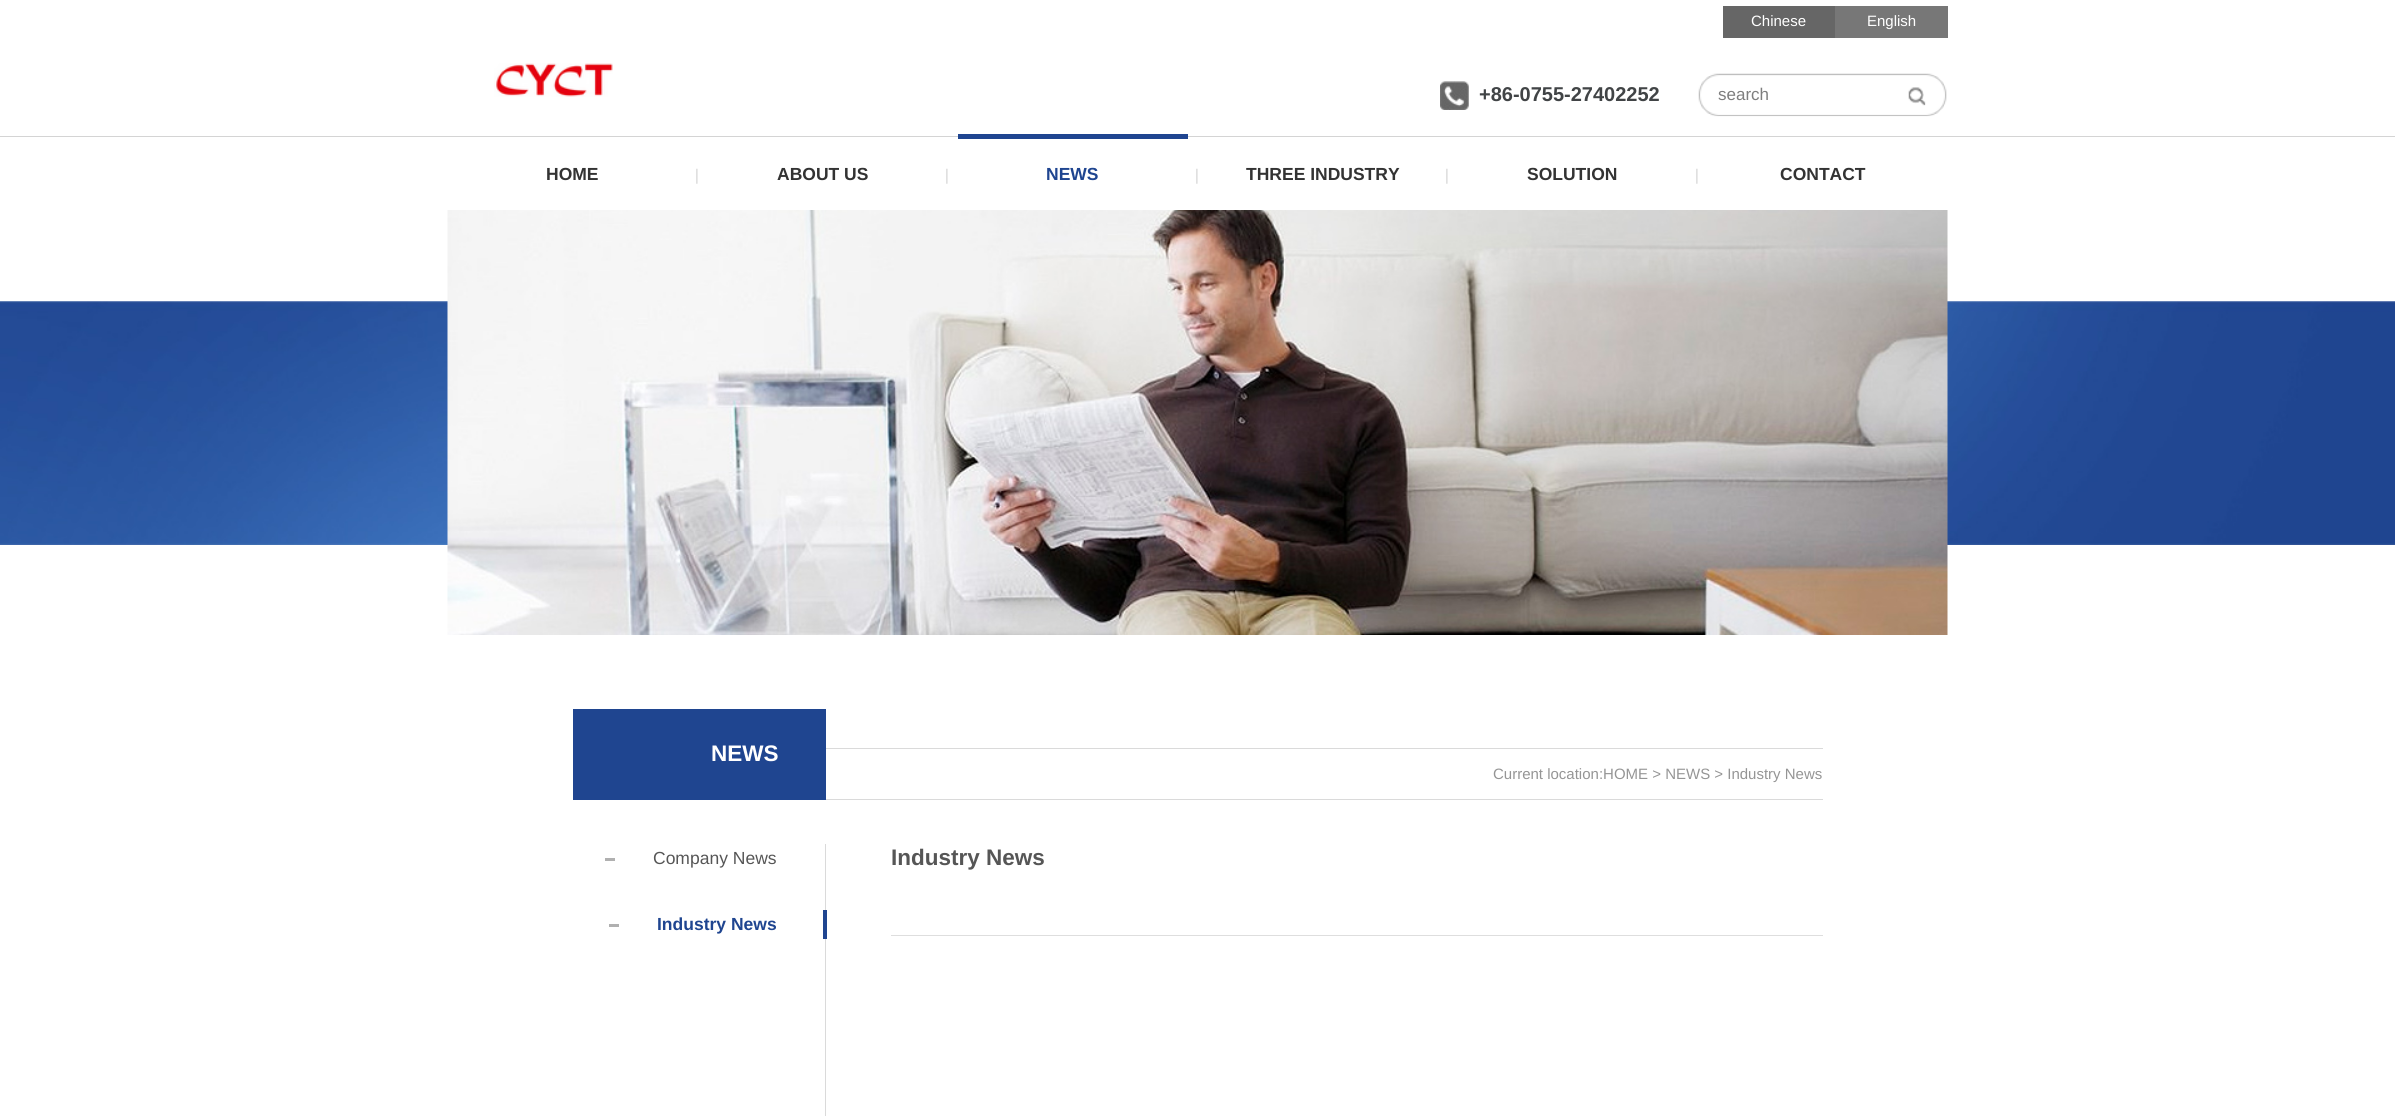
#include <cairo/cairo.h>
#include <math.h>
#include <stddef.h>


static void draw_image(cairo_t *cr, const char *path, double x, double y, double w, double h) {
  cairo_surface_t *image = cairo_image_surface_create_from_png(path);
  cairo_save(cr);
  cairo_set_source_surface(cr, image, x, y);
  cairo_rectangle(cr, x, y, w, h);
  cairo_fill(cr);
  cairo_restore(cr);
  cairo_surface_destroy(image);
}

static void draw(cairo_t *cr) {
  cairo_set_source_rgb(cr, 1, 1, 1);
  cairo_paint(cr);
  cairo_set_source_rgb(cr, 212 / 255.0, 212 / 255.0, 212 / 255.0);
  cairo_rectangle(cr, 0, 136, 2395, 1);
  cairo_fill(cr);
  draw_image(cr, "images/1.png", 494, 63, 119, 34);
  cairo_set_source_rgb(cr, 102 / 255.0, 102 / 255.0, 102 / 255.0);
  cairo_rectangle(cr, 1723, 6, 112, 32);
  cairo_fill(cr);
  cairo_set_source_rgb(cr, 119 / 255.0, 119 / 255.0, 119 / 255.0);
  cairo_rectangle(cr, 1835, 6, 113, 32);
  cairo_fill(cr);
  draw_image(cr, "images/2.png", 1440, 81, 29, 29);
  draw_image(cr, "images/3.png", 1698, 73, 249, 44);
  draw_image(cr, "images/4.png", 696, 168, 2, 16);
  draw_image(cr, "images/4.png", 946, 168, 2, 16);
  draw_image(cr, "images/4.png", 1196, 168, 2, 16);
  cairo_set_source_rgb(cr, 31 / 255.0, 69 / 255.0, 144 / 255.0);
  cairo_rectangle(cr, 958, 134, 230, 5);
  cairo_fill(cr);
  draw_image(cr, "images/4.png", 1446, 168, 2, 16);
  draw_image(cr, "images/4.png", 1696, 168, 2, 16);
  draw_image(cr, "images/5.png", 0, 301, 2395, 244);
  draw_image(cr, "images/6.png", 447, 210, 1501, 425);
  cairo_rectangle(cr, 573, 709, 253, 91);
  cairo_fill(cr);
  cairo_set_source_rgb(cr, 218 / 255.0, 218 / 255.0, 218 / 255.0);
  cairo_rectangle(cr, 825, 844, 1, 272);
  cairo_fill(cr);
  cairo_set_source_rgb(cr, 176 / 255.0, 176 / 255.0, 176 / 255.0);
  cairo_rectangle(cr, 605, 858, 10, 3);
  cairo_fill(cr);
  cairo_set_source_rgb(cr, 31 / 255.0, 69 / 255.0, 144 / 255.0);
  cairo_rectangle(cr, 823, 910, 4, 29);
  cairo_fill(cr);
  cairo_set_source_rgb(cr, 176 / 255.0, 176 / 255.0, 176 / 255.0);
  cairo_rectangle(cr, 609, 924, 10, 3);
  cairo_fill(cr);
  cairo_set_source_rgb(cr, 218 / 255.0, 218 / 255.0, 218 / 255.0);
  cairo_rectangle(cr, 826, 748, 997, 1);
  cairo_fill(cr);
  cairo_rectangle(cr, 826, 799, 997, 1);
  cairo_fill(cr);
  cairo_set_source_rgb(cr, 222 / 255.0, 222 / 255.0, 222 / 255.0);
  cairo_rectangle(cr, 891, 935, 932, 1);
  cairo_fill(cr);
  cairo_select_font_face(cr, "Liberation Sans", CAIRO_FONT_SLANT_NORMAL, CAIRO_FONT_WEIGHT_NORMAL);
  cairo_set_font_size(cr, 15);
  cairo_set_source_rgb(cr, 1, 1, 1);
  cairo_move_to(cr, 1751, 26);
  cairo_show_text(cr, "Chinese");
  cairo_move_to(cr, 1867, 26);
  cairo_show_text(cr, "English");
  cairo_select_font_face(cr, "Liberation Sans", CAIRO_FONT_SLANT_NORMAL, CAIRO_FONT_WEIGHT_BOLD);
  cairo_set_font_size(cr, 20);
  cairo_set_source_rgb(cr, 65 / 255.0, 68 / 255.0, 70 / 255.0);
  cairo_move_to(cr, 1479, 101);
  cairo_show_text(cr, "+86-0755-27402252");
  cairo_select_font_face(cr, "Liberation Sans", CAIRO_FONT_SLANT_NORMAL, CAIRO_FONT_WEIGHT_NORMAL);
  cairo_set_font_size(cr, 17);
  cairo_set_source_rgb(cr, 126 / 255.0, 126 / 255.0, 126 / 255.0);
  cairo_move_to(cr, 1718, 100);
  cairo_show_text(cr, "search");
  cairo_select_font_face(cr, "Liberation Sans", CAIRO_FONT_SLANT_NORMAL, CAIRO_FONT_WEIGHT_BOLD);
  cairo_set_font_size(cr, 17.5);
  cairo_set_source_rgb(cr, 51 / 255.0, 51 / 255.0, 51 / 255.0);
  cairo_move_to(cr, 546, 180);
  cairo_show_text(cr, "HOME");
  cairo_move_to(cr, 777, 180);
  cairo_show_text(cr, "ABOUT US");
  cairo_set_source_rgb(cr, 31 / 255.0, 69 / 255.0, 144 / 255.0);
  cairo_move_to(cr, 1046, 180);
  cairo_show_text(cr, "NEWS");
  cairo_set_source_rgb(cr, 51 / 255.0, 51 / 255.0, 51 / 255.0);
  cairo_move_to(cr, 1246, 180);
  cairo_show_text(cr, "THREE INDUSTRY");
  cairo_move_to(cr, 1527, 180);
  cairo_show_text(cr, "SOLUTION");
  cairo_move_to(cr, 1780, 180);
  cairo_show_text(cr, "CONTACT");
  cairo_set_font_size(cr, 22.5);
  cairo_set_source_rgb(cr, 1, 1, 1);
  cairo_move_to(cr, 711, 761);
  cairo_show_text(cr, "NEWS");
  cairo_select_font_face(cr, "Liberation Sans", CAIRO_FONT_SLANT_NORMAL, CAIRO_FONT_WEIGHT_NORMAL);
  cairo_set_font_size(cr, 17.5);
  cairo_set_source_rgb(cr, 86 / 255.0, 86 / 255.0, 86 / 255.0);
  cairo_move_to(cr, 653, 864);
  cairo_show_text(cr, "Company News");
  cairo_select_font_face(cr, "Liberation Sans", CAIRO_FONT_SLANT_NORMAL, CAIRO_FONT_WEIGHT_BOLD);
  cairo_set_source_rgb(cr, 31 / 255.0, 69 / 255.0, 144 / 255.0);
  cairo_move_to(cr, 657, 930);
  cairo_show_text(cr, "Industry News");
  cairo_select_font_face(cr, "Liberation Sans", CAIRO_FONT_SLANT_NORMAL, CAIRO_FONT_WEIGHT_NORMAL);
  cairo_set_font_size(cr, 15);
  cairo_set_source_rgb(cr, 149 / 255.0, 149 / 255.0, 149 / 255.0);
  cairo_move_to(cr, 1493, 779);
  cairo_show_text(cr, "Current location:HOME > NEWS > Industry News");
  cairo_select_font_face(cr, "Liberation Sans", CAIRO_FONT_SLANT_NORMAL, CAIRO_FONT_WEIGHT_BOLD);
  cairo_set_font_size(cr, 22.5);
  cairo_set_source_rgb(cr, 86 / 255.0, 86 / 255.0, 86 / 255.0);
  cairo_move_to(cr, 891, 865);
  cairo_show_text(cr, "Industry News");
}

int main(void) {
  cairo_surface_t *surface = cairo_image_surface_create(CAIRO_FORMAT_RGB24, 2395, 1116);
  cairo_t *cr = cairo_create(surface);
  cairo_font_options_t *options = cairo_font_options_create();
  cairo_font_options_set_hint_metrics(options, CAIRO_HINT_METRICS_OFF);
  cairo_font_options_set_hint_style(options, CAIRO_HINT_STYLE_NONE);
  cairo_set_font_options(cr, options);
  cairo_set_miter_limit(cr, 4);
  draw(cr);
  cairo_surface_write_to_png(surface, "out.png");
  cairo_font_options_destroy(options);
  cairo_destroy(cr);
  cairo_surface_destroy(surface);
  return 0;
}
